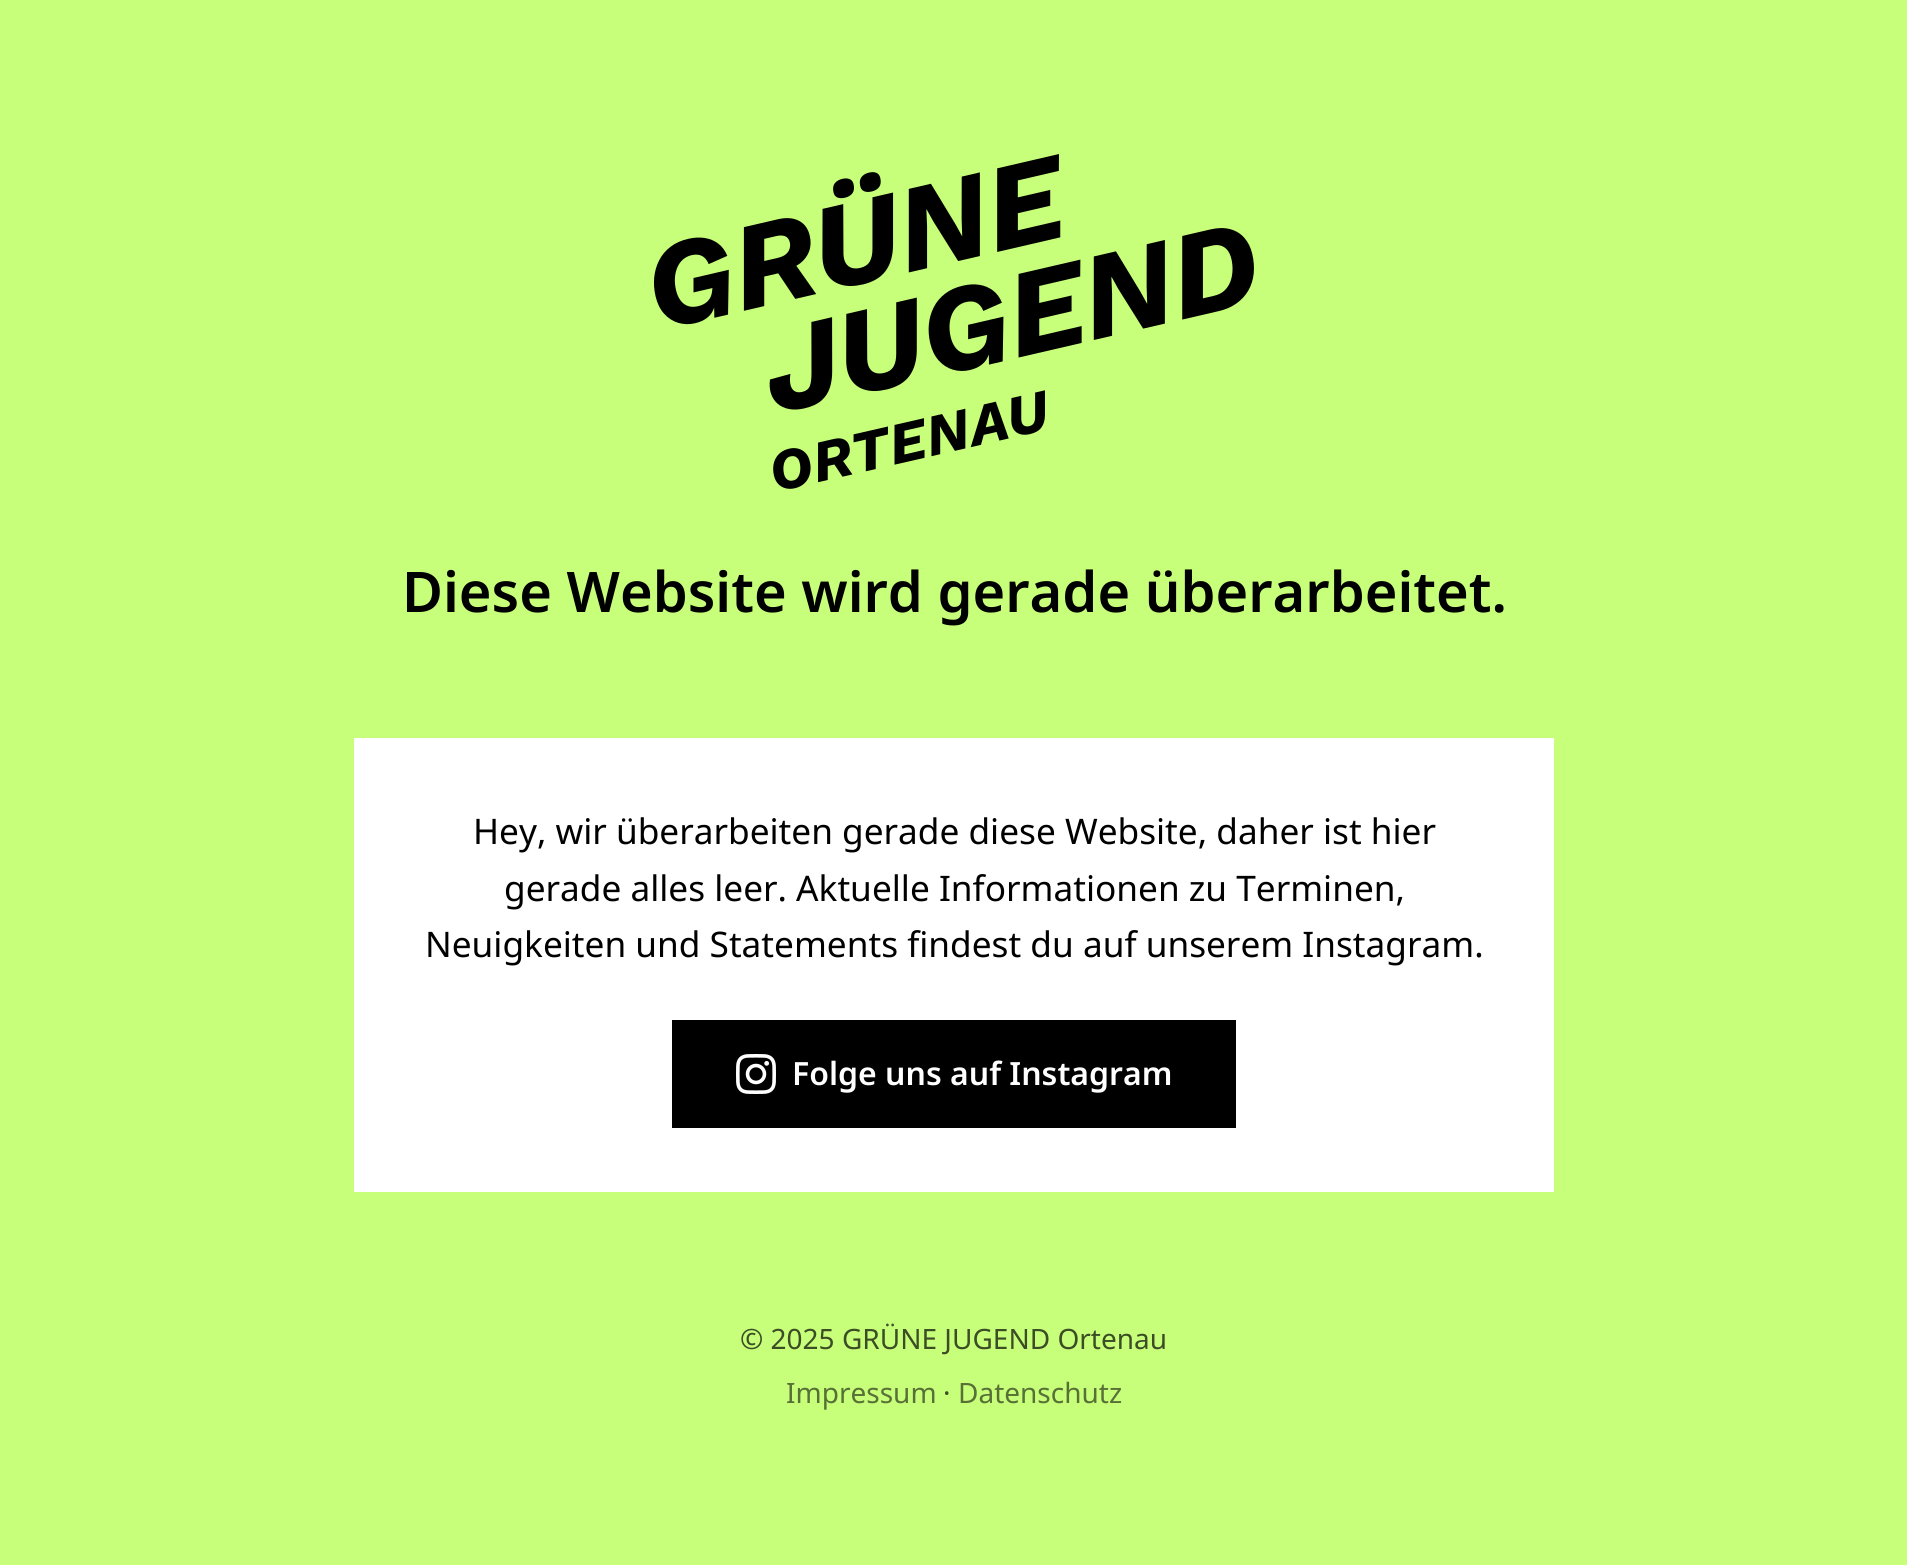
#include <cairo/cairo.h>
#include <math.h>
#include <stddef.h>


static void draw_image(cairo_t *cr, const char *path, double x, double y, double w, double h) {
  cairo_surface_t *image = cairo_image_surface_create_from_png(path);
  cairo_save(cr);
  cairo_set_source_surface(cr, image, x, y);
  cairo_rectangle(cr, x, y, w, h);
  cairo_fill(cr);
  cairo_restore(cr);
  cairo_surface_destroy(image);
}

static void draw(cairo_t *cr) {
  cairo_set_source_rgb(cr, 199 / 255.0, 1, 122 / 255.0);
  cairo_paint(cr);
  draw_image(cr, "images/1.png", 654, 154, 600, 335);
  cairo_set_source_rgb(cr, 1, 1, 1);
  cairo_rectangle(cr, 354, 738, 1200, 454);
  cairo_fill(cr);
  cairo_set_source_rgb(cr, 0, 0, 0);
  cairo_rectangle(cr, 672, 1020, 564, 108);
  cairo_fill(cr);
  draw_image(cr, "images/2.png", 736, 1054, 40, 40);
  cairo_select_font_face(cr, "Noto Sans SemiBold", CAIRO_FONT_SLANT_NORMAL, CAIRO_FONT_WEIGHT_NORMAL);
  cairo_set_font_size(cr, 56);
  cairo_move_to(cr, 402, 612);
  cairo_show_text(cr, "Diese Website wird gerade überarbeitet.");
  cairo_select_font_face(cr, "Noto Sans", CAIRO_FONT_SLANT_NORMAL, CAIRO_FONT_WEIGHT_NORMAL);
  cairo_set_font_size(cr, 35.2);
  cairo_move_to(cr, 473, 844);
  cairo_show_text(cr, "Hey, wir überarbeiten gerade diese Website, daher ist hier");
  cairo_move_to(cr, 504, 901);
  cairo_show_text(cr, "gerade alles leer. Aktuelle Informationen zu Terminen,");
  cairo_move_to(cr, 425, 957);
  cairo_show_text(cr, "Neuigkeiten und Statements findest du auf unserem Instagram.");
  cairo_select_font_face(cr, "Noto Sans SemiBold", CAIRO_FONT_SLANT_NORMAL, CAIRO_FONT_WEIGHT_NORMAL);
  cairo_set_font_size(cr, 32);
  cairo_set_source_rgb(cr, 1, 1, 1);
  cairo_move_to(cr, 792, 1085);
  cairo_show_text(cr, "Folge uns auf Instagram");
  cairo_select_font_face(cr, "Noto Sans", CAIRO_FONT_SLANT_NORMAL, CAIRO_FONT_WEIGHT_NORMAL);
  cairo_set_font_size(cr, 28);
  cairo_set_source_rgb(cr, 60 / 255.0, 77 / 255.0, 37 / 255.0);
  cairo_move_to(cr, 740, 1349);
  cairo_show_text(cr, "© 2025 GRÜNE JUGEND Ortenau");
  cairo_set_source_rgb(cr, 88 / 255.0, 112 / 255.0, 54 / 255.0);
  cairo_move_to(cr, 786, 1403);
  cairo_show_text(cr, "Impressum");
  cairo_set_source_rgb(cr, 60 / 255.0, 77 / 255.0, 37 / 255.0);
  cairo_move_to(cr, 943, 1403);
  cairo_show_text(cr, "·");
  cairo_set_source_rgb(cr, 88 / 255.0, 112 / 255.0, 54 / 255.0);
  cairo_move_to(cr, 958, 1403);
  cairo_show_text(cr, "Datenschutz");
}

int main(void) {
  cairo_surface_t *surface = cairo_image_surface_create(CAIRO_FORMAT_RGB24, 1907, 1565);
  cairo_t *cr = cairo_create(surface);
  cairo_font_options_t *options = cairo_font_options_create();
  cairo_font_options_set_hint_metrics(options, CAIRO_HINT_METRICS_OFF);
  cairo_font_options_set_hint_style(options, CAIRO_HINT_STYLE_NONE);
  cairo_set_font_options(cr, options);
  cairo_set_miter_limit(cr, 4);
  draw(cr);
  cairo_surface_write_to_png(surface, "out.png");
  cairo_font_options_destroy(options);
  cairo_destroy(cr);
  cairo_surface_destroy(surface);
  return 0;
}
